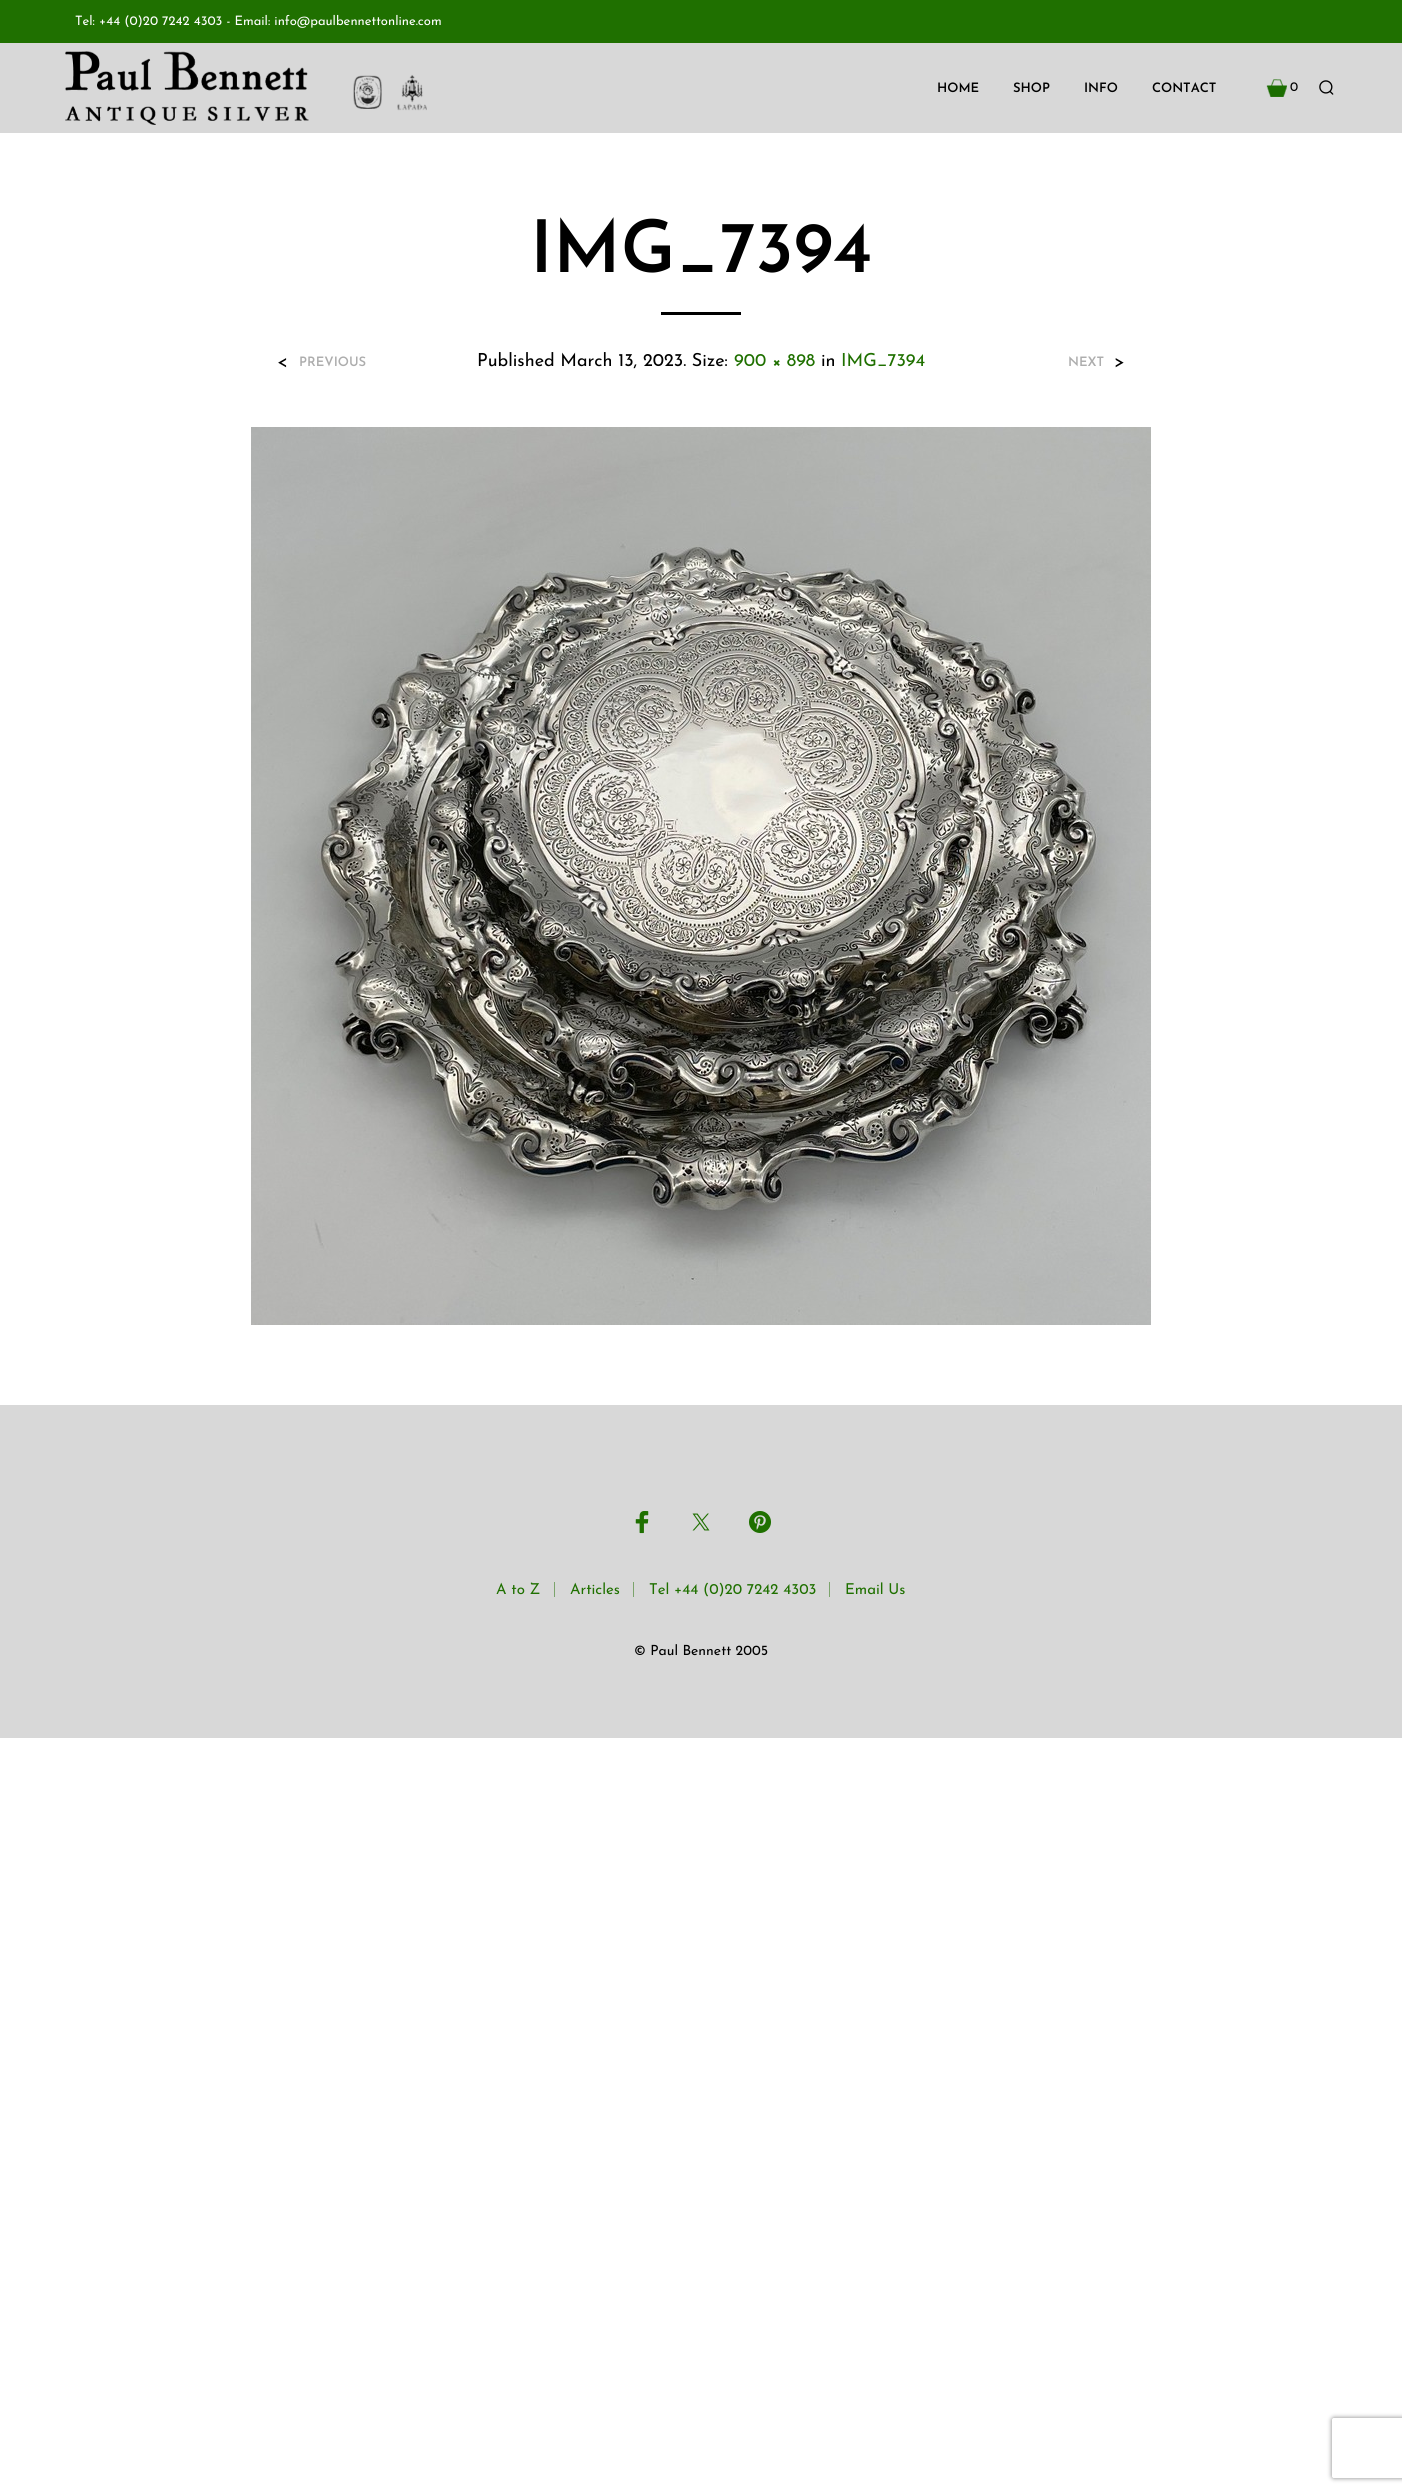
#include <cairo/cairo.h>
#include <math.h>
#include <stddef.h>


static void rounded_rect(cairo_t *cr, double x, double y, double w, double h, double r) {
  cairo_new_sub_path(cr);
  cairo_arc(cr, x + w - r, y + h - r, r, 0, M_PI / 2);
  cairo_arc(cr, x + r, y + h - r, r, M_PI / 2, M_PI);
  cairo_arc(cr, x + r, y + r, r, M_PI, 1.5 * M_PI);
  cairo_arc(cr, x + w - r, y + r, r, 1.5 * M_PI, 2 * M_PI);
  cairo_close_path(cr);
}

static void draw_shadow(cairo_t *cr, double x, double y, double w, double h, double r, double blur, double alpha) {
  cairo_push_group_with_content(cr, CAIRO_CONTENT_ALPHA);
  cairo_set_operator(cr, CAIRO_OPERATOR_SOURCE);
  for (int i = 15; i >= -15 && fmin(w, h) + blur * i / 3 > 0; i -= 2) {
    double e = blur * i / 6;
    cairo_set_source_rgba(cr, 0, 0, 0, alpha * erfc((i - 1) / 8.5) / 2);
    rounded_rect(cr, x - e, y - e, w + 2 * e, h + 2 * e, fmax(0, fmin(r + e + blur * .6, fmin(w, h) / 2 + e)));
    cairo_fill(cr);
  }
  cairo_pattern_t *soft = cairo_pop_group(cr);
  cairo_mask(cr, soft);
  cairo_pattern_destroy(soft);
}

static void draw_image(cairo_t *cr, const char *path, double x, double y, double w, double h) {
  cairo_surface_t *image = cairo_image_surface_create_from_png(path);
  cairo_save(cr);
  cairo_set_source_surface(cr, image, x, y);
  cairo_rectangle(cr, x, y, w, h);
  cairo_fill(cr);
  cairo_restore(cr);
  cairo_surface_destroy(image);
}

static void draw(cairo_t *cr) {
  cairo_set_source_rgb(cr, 1, 1, 1);
  cairo_paint(cr);
  cairo_set_source_rgb(cr, 31 / 255.0, 112 / 255.0, 0);
  cairo_rectangle(cr, 0, 0, 1402, 43);
  cairo_fill(cr);
  cairo_set_source_rgb(cr, 216 / 255.0, 216 / 255.0, 216 / 255.0);
  cairo_rectangle(cr, 0, 43, 1402, 90);
  cairo_fill(cr);
  draw_image(cr, "images/1.png", 65, 51, 362, 74);
  draw_image(cr, "images/2.png", 1266, 79, 21, 18);
  draw_image(cr, "images/3.png", 1319, 80, 15, 15);
  cairo_set_source_rgb(cr, 0, 0, 0);
  cairo_rectangle(cr, 661, 312, 80, 3);
  cairo_fill(cr);
  draw_image(cr, "images/4.png", 251, 427, 900, 898);
  cairo_set_source_rgb(cr, 216 / 255.0, 216 / 255.0, 216 / 255.0);
  cairo_rectangle(cr, 0, 1405, 1402, 333);
  cairo_fill(cr);
  draw_image(cr, "images/5.png", 635, 1511, 14, 23);
  draw_image(cr, "images/6.png", 692, 1513, 18, 18);
  draw_image(cr, "images/7.png", 749, 1511, 22, 22);
  cairo_set_source_rgb(cr, 124 / 255.0, 164 / 255.0, 108 / 255.0);
  cairo_rectangle(cr, 554, 1582, 1, 15);
  cairo_fill(cr);
  cairo_rectangle(cr, 633, 1582, 1, 15);
  cairo_fill(cr);
  cairo_rectangle(cr, 829, 1582, 1, 15);
  cairo_fill(cr);
  cairo_save(cr);
  cairo_set_fill_rule(cr, CAIRO_FILL_RULE_EVEN_ODD);
  cairo_new_path(cr);
  cairo_move_to(cr, 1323, 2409);
  cairo_line_to(cr, 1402, 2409);
  cairo_line_to(cr, 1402, 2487);
  cairo_line_to(cr, 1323, 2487);
  cairo_close_path(cr);
  cairo_move_to(cr, 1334, 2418);
  cairo_line_to(cr, 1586, 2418);
  cairo_curve_to(cr, 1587, 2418, 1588, 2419, 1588, 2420);
  cairo_line_to(cr, 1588, 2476);
  cairo_curve_to(cr, 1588, 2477, 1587, 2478, 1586, 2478);
  cairo_line_to(cr, 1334, 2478);
  cairo_curve_to(cr, 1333, 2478, 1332, 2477, 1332, 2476);
  cairo_line_to(cr, 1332, 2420);
  cairo_curve_to(cr, 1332, 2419, 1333, 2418, 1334, 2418);
  cairo_close_path(cr);
  cairo_clip(cr);
  cairo_set_source_rgb(cr, 128 / 255.0, 128 / 255.0, 128 / 255.0);
  draw_shadow(cr, 1332, 2418, 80, 60, 2, 2.5, 1);
  cairo_restore(cr);
  cairo_select_font_face(cr, "Josefin Sans", CAIRO_FONT_SLANT_NORMAL, CAIRO_FONT_WEIGHT_NORMAL);
  cairo_set_font_size(cr, 13);
  cairo_set_source_rgb(cr, 1, 1, 1);
  cairo_move_to(cr, 75, 25);
  cairo_show_text(cr, "Tel: +44 (0)20 7242 4303 - Email: info@paulbennettonline.com");
  cairo_select_font_face(cr, "Josefin Sans SemiBold", CAIRO_FONT_SLANT_NORMAL, CAIRO_FONT_WEIGHT_NORMAL);
  cairo_set_source_rgb(cr, 0, 0, 0);
  cairo_move_to(cr, 937, 92);
  cairo_show_text(cr, "HOME");
  cairo_move_to(cr, 1013, 92);
  cairo_show_text(cr, "SHOP");
  cairo_move_to(cr, 1084, 92);
  cairo_show_text(cr, "INFO");
  cairo_move_to(cr, 1152, 92);
  cairo_show_text(cr, "CONTACT");
  cairo_select_font_face(cr, "Josefin Sans", CAIRO_FONT_SLANT_NORMAL, CAIRO_FONT_WEIGHT_NORMAL);
  cairo_move_to(cr, 1290, 91);
  cairo_show_text(cr, "0");
  cairo_select_font_face(cr, "Josefin Sans SemiBold", CAIRO_FONT_SLANT_NORMAL, CAIRO_FONT_WEIGHT_NORMAL);
  cairo_set_font_size(cr, 72.5);
  cairo_move_to(cr, 530, 272);
  cairo_show_text(cr, "IMG_7394");
  cairo_select_font_face(cr, "Josefin Sans", CAIRO_FONT_SLANT_NORMAL, CAIRO_FONT_WEIGHT_NORMAL);
  cairo_set_font_size(cr, 18);
  cairo_move_to(cr, 477, 366);
  cairo_show_text(cr, "Published March 13, 2023. Size:");
  cairo_set_source_rgb(cr, 31 / 255.0, 112 / 255.0, 0);
  cairo_move_to(cr, 734, 366);
  cairo_show_text(cr, "900 × 898");
  cairo_set_source_rgb(cr, 0, 0, 0);
  cairo_move_to(cr, 821, 366);
  cairo_show_text(cr, "in");
  cairo_set_source_rgb(cr, 31 / 255.0, 112 / 255.0, 0);
  cairo_move_to(cr, 841, 366);
  cairo_show_text(cr, "IMG_7394");
  cairo_set_source_rgb(cr, 0, 0, 0);
  cairo_move_to(cr, 277, 367);
  cairo_show_text(cr, "<");
  cairo_select_font_face(cr, "Josefin Sans SemiBold", CAIRO_FONT_SLANT_NORMAL, CAIRO_FONT_WEIGHT_NORMAL);
  cairo_set_font_size(cr, 13);
  cairo_set_source_rgb(cr, 173 / 255.0, 173 / 255.0, 173 / 255.0);
  cairo_move_to(cr, 299, 366);
  cairo_show_text(cr, "PREVIOUS");
  cairo_move_to(cr, 1068, 366);
  cairo_show_text(cr, "NEXT");
  cairo_select_font_face(cr, "Josefin Sans", CAIRO_FONT_SLANT_NORMAL, CAIRO_FONT_WEIGHT_NORMAL);
  cairo_set_font_size(cr, 18);
  cairo_set_source_rgb(cr, 0, 0, 0);
  cairo_move_to(cr, 1114, 367);
  cairo_show_text(cr, ">");
  cairo_set_font_size(cr, 15);
  cairo_set_source_rgb(cr, 31 / 255.0, 112 / 255.0, 0);
  cairo_move_to(cr, 496, 1594);
  cairo_show_text(cr, "A to Z");
  cairo_move_to(cr, 570, 1594);
  cairo_show_text(cr, "Articles");
  cairo_move_to(cr, 649, 1594);
  cairo_show_text(cr, "Tel +44 (0)20 7242 4303");
  cairo_move_to(cr, 845, 1594);
  cairo_show_text(cr, "Email Us");
  cairo_set_font_size(cr, 14);
  cairo_set_source_rgb(cr, 0, 0, 0);
  cairo_move_to(cr, 634, 1655);
  cairo_show_text(cr, "© Paul Bennett 2005");
}

int main(void) {
  cairo_surface_t *surface = cairo_image_surface_create(CAIRO_FORMAT_RGB24, 1402, 2492);
  cairo_t *cr = cairo_create(surface);
  cairo_font_options_t *options = cairo_font_options_create();
  cairo_font_options_set_hint_metrics(options, CAIRO_HINT_METRICS_OFF);
  cairo_font_options_set_hint_style(options, CAIRO_HINT_STYLE_NONE);
  cairo_set_font_options(cr, options);
  cairo_set_miter_limit(cr, 4);
  draw(cr);
  cairo_surface_write_to_png(surface, "out.png");
  cairo_font_options_destroy(options);
  cairo_destroy(cr);
  cairo_surface_destroy(surface);
  return 0;
}
